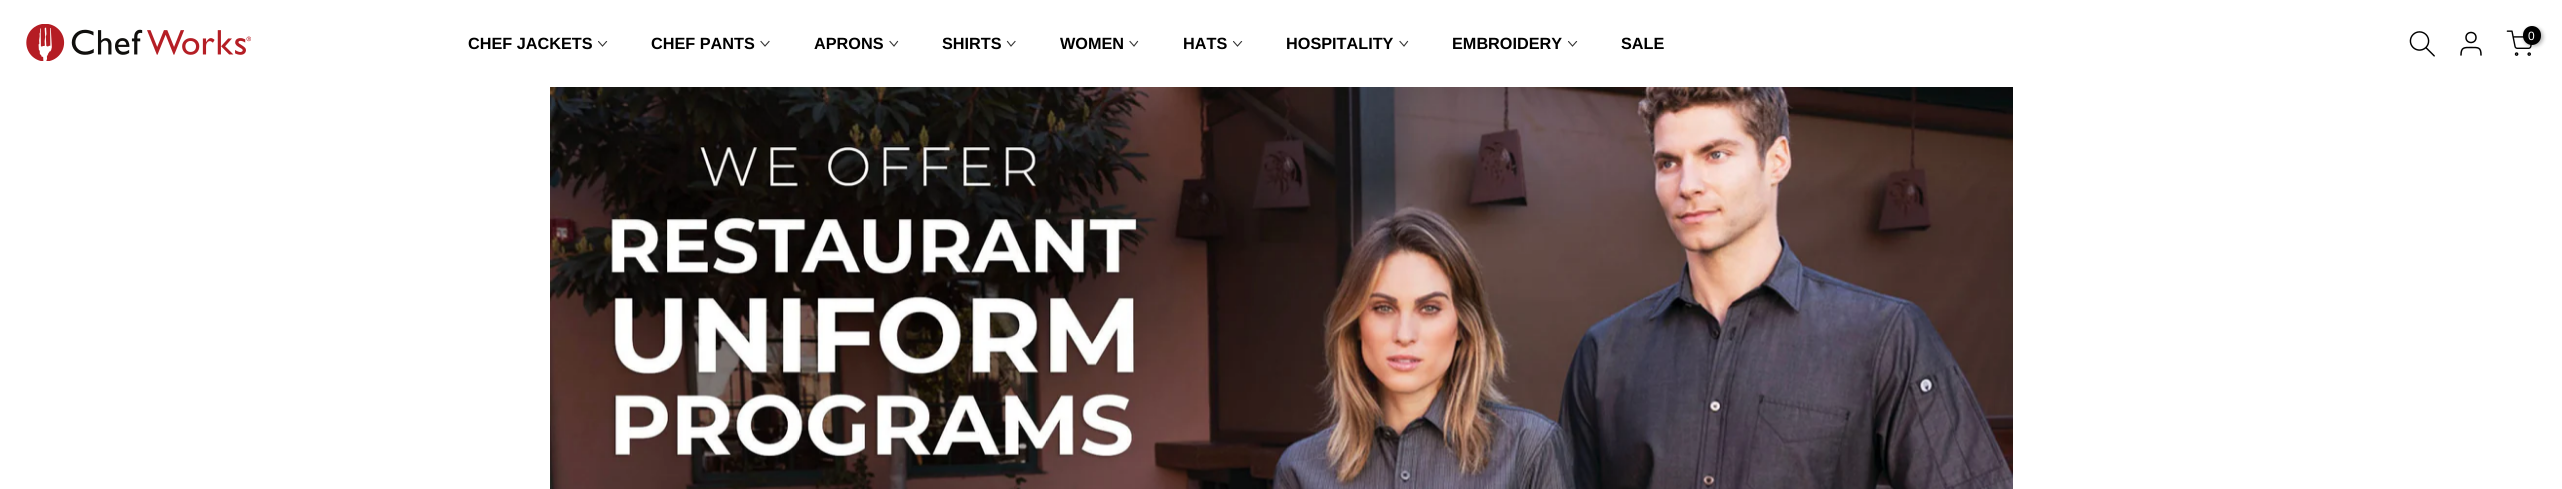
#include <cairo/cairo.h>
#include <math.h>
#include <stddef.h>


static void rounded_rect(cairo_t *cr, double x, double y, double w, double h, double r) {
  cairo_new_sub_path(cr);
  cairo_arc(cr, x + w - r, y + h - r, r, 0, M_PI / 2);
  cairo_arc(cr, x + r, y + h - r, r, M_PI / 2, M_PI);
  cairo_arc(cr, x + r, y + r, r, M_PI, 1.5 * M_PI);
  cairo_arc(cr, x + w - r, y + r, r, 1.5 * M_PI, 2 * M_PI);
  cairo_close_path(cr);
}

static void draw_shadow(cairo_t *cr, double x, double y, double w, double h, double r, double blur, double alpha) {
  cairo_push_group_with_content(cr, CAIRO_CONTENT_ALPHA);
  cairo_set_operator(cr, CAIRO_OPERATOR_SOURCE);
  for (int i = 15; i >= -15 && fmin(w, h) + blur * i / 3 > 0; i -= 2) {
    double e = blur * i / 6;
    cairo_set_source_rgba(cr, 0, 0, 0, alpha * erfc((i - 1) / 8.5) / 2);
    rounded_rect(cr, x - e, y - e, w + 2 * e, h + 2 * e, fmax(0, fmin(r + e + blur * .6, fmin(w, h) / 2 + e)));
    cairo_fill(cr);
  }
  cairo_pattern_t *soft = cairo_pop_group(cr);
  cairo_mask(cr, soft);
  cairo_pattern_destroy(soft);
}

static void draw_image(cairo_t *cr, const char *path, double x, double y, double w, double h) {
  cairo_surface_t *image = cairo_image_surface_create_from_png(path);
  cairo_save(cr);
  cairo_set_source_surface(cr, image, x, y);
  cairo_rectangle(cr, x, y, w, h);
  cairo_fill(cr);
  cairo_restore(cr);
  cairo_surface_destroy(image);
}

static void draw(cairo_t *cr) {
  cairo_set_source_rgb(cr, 1, 1, 1);
  cairo_paint(cr);
  draw_image(cr, "images/1.png", 26, 24, 225, 37);
  draw_image(cr, "images/2.png", 2409, 31, 26, 26);
  cairo_arc(cr, 2471, 37.5, 5, 0, 2 * M_PI);
  cairo_set_source_rgb(cr, 0, 0, 0);
  cairo_set_line_width(cr, 1.5);
  cairo_stroke(cr);
  cairo_new_path(cr);
  cairo_move_to(cr, 2481, 55);
  cairo_curve_to(cr, 2481, 47, 2478, 47.5, 2471, 47.5);
  cairo_curve_to(cr, 2464.5, 47.5, 2461, 47, 2461, 55);
  cairo_set_line_cap(cr, CAIRO_LINE_CAP_ROUND);
  cairo_set_line_join(cr, CAIRO_LINE_JOIN_ROUND);
  cairo_stroke(cr);
  draw_image(cr, "images/3.png", 2506, 30, 26, 26);
  cairo_set_source_rgb(cr, 0, 0, 0);
  draw_shadow(cr, 2524, 28, 19, 18, 9, 2, 0.3);
  cairo_set_source_rgb(cr, 0, 0, 0);
  rounded_rect(cr, 2523, 26, 18, 19, 9);
  cairo_fill(cr);
  cairo_save(cr);
  cairo_rectangle(cr, 598, 41, 10, 6);
  cairo_clip(cr);
  cairo_new_path(cr);
  cairo_move_to(cr, 606.5, 41.5);
  cairo_line_to(cr, 602.5, 46);
  cairo_line_to(cr, 598.5, 41.5);
  cairo_set_source_rgb(cr, 51 / 255.0, 51 / 255.0, 51 / 255.0);
  cairo_set_line_width(cr, 1.1);
  cairo_set_line_cap(cr, CAIRO_LINE_CAP_SQUARE);
  cairo_set_line_join(cr, CAIRO_LINE_JOIN_MITER);
  cairo_stroke(cr);
  cairo_restore(cr);
  cairo_new_path(cr);
  cairo_move_to(cr, 769, 41.5);
  cairo_line_to(cr, 765, 46);
  cairo_line_to(cr, 761, 41.5);
  cairo_set_source_rgb(cr, 51 / 255.0, 51 / 255.0, 51 / 255.0);
  cairo_set_line_width(cr, 1.1);
  cairo_set_line_cap(cr, CAIRO_LINE_CAP_SQUARE);
  cairo_set_line_join(cr, CAIRO_LINE_JOIN_MITER);
  cairo_stroke(cr);
  cairo_new_path(cr);
  cairo_move_to(cr, 897.5, 41.5);
  cairo_line_to(cr, 894, 46);
  cairo_line_to(cr, 890, 41.5);
  cairo_stroke(cr);
  cairo_new_path(cr);
  cairo_move_to(cr, 1015, 41.5);
  cairo_line_to(cr, 1011, 46);
  cairo_line_to(cr, 1007.5, 41.5);
  cairo_stroke(cr);
  cairo_new_path(cr);
  cairo_move_to(cr, 1137.5, 41.5);
  cairo_line_to(cr, 1134, 46);
  cairo_line_to(cr, 1130, 41.5);
  cairo_stroke(cr);
  cairo_save(cr);
  cairo_rectangle(cr, 1233, 41, 10, 6);
  cairo_clip(cr);
  cairo_new_path(cr);
  cairo_move_to(cr, 1241.5, 41.5);
  cairo_line_to(cr, 1237.5, 46);
  cairo_line_to(cr, 1233.5, 41.5);
  cairo_stroke(cr);
  cairo_restore(cr);
  cairo_new_path(cr);
  cairo_move_to(cr, 1407.5, 41.5);
  cairo_line_to(cr, 1404, 46);
  cairo_line_to(cr, 1400, 41.5);
  cairo_stroke(cr);
  cairo_save(cr);
  cairo_rectangle(cr, 1568, 41, 10, 6);
  cairo_clip(cr);
  cairo_new_path(cr);
  cairo_move_to(cr, 1576.5, 41.5);
  cairo_line_to(cr, 1572.5, 46);
  cairo_line_to(cr, 1568.5, 41.5);
  cairo_stroke(cr);
  cairo_restore(cr);
  draw_image(cr, "images/4.png", 550, 87, 1463, 402);
  cairo_select_font_face(cr, "Liberation Sans", CAIRO_FONT_SLANT_NORMAL, CAIRO_FONT_WEIGHT_NORMAL);
  cairo_set_font_size(cr, 12);
  cairo_set_source_rgb(cr, 1, 1, 1);
  cairo_move_to(cr, 2528, 40);
  cairo_show_text(cr, "0");
  cairo_select_font_face(cr, "Liberation Sans", CAIRO_FONT_SLANT_NORMAL, CAIRO_FONT_WEIGHT_BOLD);
  cairo_set_font_size(cr, 16.25);
  cairo_set_source_rgb(cr, 0, 0, 0);
  cairo_move_to(cr, 468, 49);
  cairo_show_text(cr, "CHEF JACKETS");
  cairo_move_to(cr, 651, 49);
  cairo_show_text(cr, "CHEF PANTS");
  cairo_move_to(cr, 814, 49);
  cairo_show_text(cr, "APRONS");
  cairo_move_to(cr, 942, 49);
  cairo_show_text(cr, "SHIRTS");
  cairo_move_to(cr, 1060, 49);
  cairo_show_text(cr, "WOMEN");
  cairo_move_to(cr, 1183, 49);
  cairo_show_text(cr, "HATS");
  cairo_move_to(cr, 1286, 49);
  cairo_show_text(cr, "HOSPITALITY");
  cairo_move_to(cr, 1452, 49);
  cairo_show_text(cr, "EMBROIDERY");
  cairo_move_to(cr, 1621, 49);
  cairo_show_text(cr, "SALE");
}

int main(void) {
  cairo_surface_t *surface = cairo_image_surface_create(CAIRO_FORMAT_RGB24, 2562, 489);
  cairo_t *cr = cairo_create(surface);
  cairo_font_options_t *options = cairo_font_options_create();
  cairo_font_options_set_hint_metrics(options, CAIRO_HINT_METRICS_OFF);
  cairo_font_options_set_hint_style(options, CAIRO_HINT_STYLE_NONE);
  cairo_set_font_options(cr, options);
  cairo_set_miter_limit(cr, 4);
  draw(cr);
  cairo_surface_write_to_png(surface, "out.png");
  cairo_font_options_destroy(options);
  cairo_destroy(cr);
  cairo_surface_destroy(surface);
  return 0;
}
